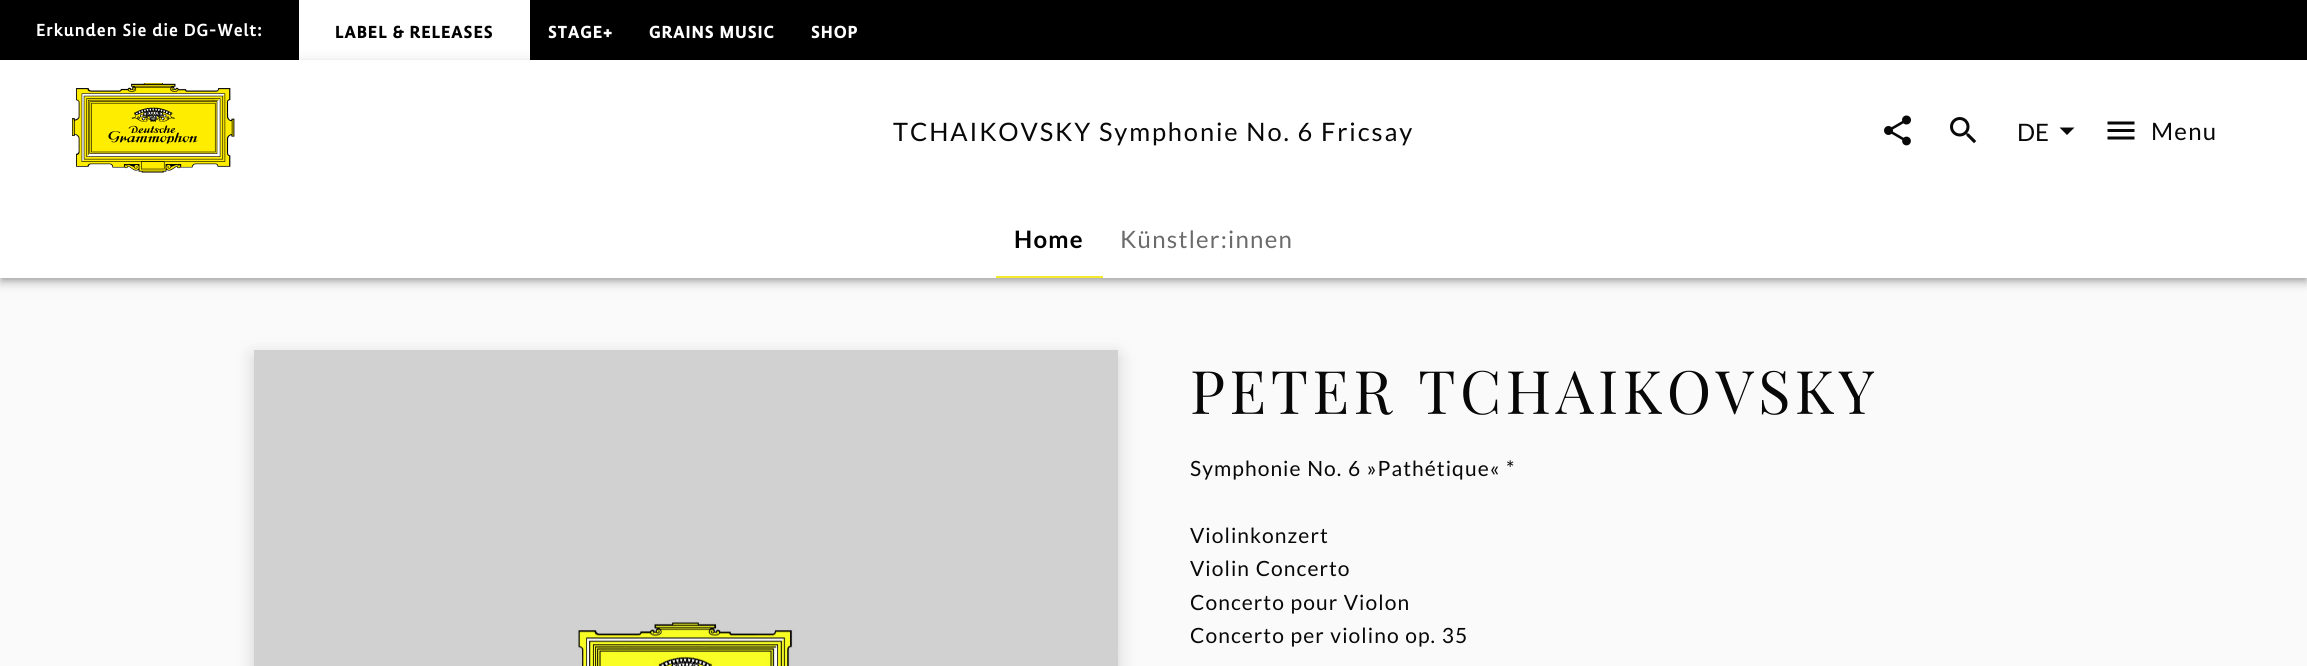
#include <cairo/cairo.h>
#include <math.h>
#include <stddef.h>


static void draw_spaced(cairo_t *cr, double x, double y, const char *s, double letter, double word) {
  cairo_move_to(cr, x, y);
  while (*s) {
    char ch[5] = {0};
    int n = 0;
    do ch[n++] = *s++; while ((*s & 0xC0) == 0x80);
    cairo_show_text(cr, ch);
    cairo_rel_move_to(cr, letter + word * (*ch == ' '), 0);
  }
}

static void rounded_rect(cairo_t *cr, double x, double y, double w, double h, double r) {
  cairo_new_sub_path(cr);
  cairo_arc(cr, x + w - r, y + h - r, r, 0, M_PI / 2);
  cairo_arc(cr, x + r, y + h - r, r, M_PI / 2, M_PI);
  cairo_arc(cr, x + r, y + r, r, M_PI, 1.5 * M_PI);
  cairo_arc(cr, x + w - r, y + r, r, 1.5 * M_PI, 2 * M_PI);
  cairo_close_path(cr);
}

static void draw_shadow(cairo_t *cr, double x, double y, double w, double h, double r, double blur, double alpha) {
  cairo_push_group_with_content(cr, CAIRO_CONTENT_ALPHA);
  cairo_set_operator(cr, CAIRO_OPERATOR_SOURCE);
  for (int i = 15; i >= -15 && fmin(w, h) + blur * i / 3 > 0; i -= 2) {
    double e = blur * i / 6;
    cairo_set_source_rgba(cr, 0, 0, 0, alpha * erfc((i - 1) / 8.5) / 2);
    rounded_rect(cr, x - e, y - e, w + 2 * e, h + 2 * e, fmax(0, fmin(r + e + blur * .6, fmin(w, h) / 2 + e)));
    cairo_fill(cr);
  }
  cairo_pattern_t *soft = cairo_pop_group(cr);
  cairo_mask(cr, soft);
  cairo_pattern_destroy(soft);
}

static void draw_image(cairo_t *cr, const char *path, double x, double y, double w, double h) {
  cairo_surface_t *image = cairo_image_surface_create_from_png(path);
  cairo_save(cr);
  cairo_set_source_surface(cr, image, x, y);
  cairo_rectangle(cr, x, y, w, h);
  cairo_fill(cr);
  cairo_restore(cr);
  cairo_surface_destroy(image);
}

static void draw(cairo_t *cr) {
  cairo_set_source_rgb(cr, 250 / 255.0, 250 / 255.0, 250 / 255.0);
  cairo_paint(cr);
  cairo_set_source_rgb(cr, 0, 0, 0);
  cairo_rectangle(cr, 0, 0, 2307, 60);
  cairo_fill(cr);
  cairo_set_source_rgb(cr, 1, 1, 1);
  cairo_rectangle(cr, 299, 0, 231, 60);
  cairo_fill(cr);
  cairo_set_source_rgb(cr, 0, 0, 0);
  draw_shadow(cr, 0, 62, 2307, 217, 0, 7.5, 0.12);
  draw_shadow(cr, 0, 66, 2307, 218, 0, 4, 0.14);
  draw_shadow(cr, 2, 65, 2304, 214, 0, 3, 0.2);
  cairo_set_source_rgb(cr, 1, 1, 1);
  cairo_rectangle(cr, 0, 60, 2307, 218);
  cairo_fill(cr);
  draw_image(cr, "images/1.png", 72, 83, 163, 90);
  draw_image(cr, "images/2.png", 1884, 115, 27, 31);
  draw_image(cr, "images/3.png", 1950, 117, 27, 27);
  cairo_set_source_rgb(cr, 8 / 255.0, 8 / 255.0, 8 / 255.0);
  cairo_new_path(cr);
  cairo_move_to(cr, 2059.5, 127.5);
  cairo_line_to(cr, 2067, 135);
  cairo_line_to(cr, 2074.5, 127.5);
  cairo_close_path(cr);
  cairo_fill(cr);
  draw_image(cr, "images/4.png", 2107, 121, 28, 19);
  cairo_set_source_rgb(cr, 243 / 255.0, 234 / 255.0, 44 / 255.0);
  cairo_rectangle(cr, 996, 276, 107, 2);
  cairo_fill(cr);
  cairo_set_source_rgb(cr, 67 / 255.0, 67 / 255.0, 67 / 255.0);
  draw_shadow(cr, 254, 356, 864, 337, 0, 9, 0.23);
  draw_image(cr, "images/5.png", 254, 350, 864, 316);
  cairo_select_font_face(cr, "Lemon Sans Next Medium", CAIRO_FONT_SLANT_NORMAL, CAIRO_FONT_WEIGHT_NORMAL);
  cairo_set_font_size(cr, 18);
  cairo_set_source_rgb(cr, 1, 1, 1);
  draw_spaced(cr, 36, 36, "Erkunden Sie die DG-Welt:", 0.9, 0);
  cairo_select_font_face(cr, "Lemon Sans Next", CAIRO_FONT_SLANT_NORMAL, CAIRO_FONT_WEIGHT_BOLD);
  cairo_set_source_rgb(cr, 0, 0, 0);
  draw_spaced(cr, 335, 38, "LABEL & RELEASES", 0.9, 0);
  cairo_set_source_rgb(cr, 1, 1, 1);
  draw_spaced(cr, 548, 38, "STAGE+", 0.9, 0);
  draw_spaced(cr, 649, 38, "GRAINS MUSIC", 0.9, 0);
  draw_spaced(cr, 811, 38, "SHOP", 0.9, 0);
  cairo_select_font_face(cr, "Lato", CAIRO_FONT_SLANT_NORMAL, CAIRO_FONT_WEIGHT_NORMAL);
  cairo_set_font_size(cr, 25.4);
  cairo_set_source_rgb(cr, 8 / 255.0, 8 / 255.0, 8 / 255.0);
  draw_spaced(cr, 893, 141, "TCHAIKOVSKY Symphonie No. 6 Fricsay", 1.9, 0);
  cairo_set_font_size(cr, 24);
  cairo_move_to(cr, 2017, 141);
  cairo_show_text(cr, "DE");
  draw_spaced(cr, 2151, 140, "Menu", 1.25, 0);
  cairo_select_font_face(cr, "Lato", CAIRO_FONT_SLANT_NORMAL, CAIRO_FONT_WEIGHT_BOLD);
  cairo_set_source_rgb(cr, 0, 0, 0);
  draw_spaced(cr, 1014, 248, "Home", 1.25, 0);
  cairo_select_font_face(cr, "Lato", CAIRO_FONT_SLANT_NORMAL, CAIRO_FONT_WEIGHT_NORMAL);
  cairo_set_source_rgb(cr, 107 / 255.0, 107 / 255.0, 107 / 255.0);
  draw_spaced(cr, 1120, 248, "Künstler:innen", 1.25, 0);
  cairo_select_font_face(cr, "Playfair Display", CAIRO_FONT_SLANT_NORMAL, CAIRO_FONT_WEIGHT_NORMAL);
  cairo_set_font_size(cr, 60);
  cairo_set_source_rgb(cr, 8 / 255.0, 8 / 255.0, 8 / 255.0);
  draw_spaced(cr, 1190, 414, "PETER TCHAIKOVSKY", 4.5, 2);
  cairo_select_font_face(cr, "Lato", CAIRO_FONT_SLANT_NORMAL, CAIRO_FONT_WEIGHT_NORMAL);
  cairo_set_font_size(cr, 21);
  draw_spaced(cr, 1190, 476, "Symphonie No. 6 »Pathétique« *", 1.05, 0.5);
  draw_spaced(cr, 1190, 543, "Violinkonzert", 1.05, 0);
  draw_spaced(cr, 1190, 576, "Violin Concerto", 1.05, 0.5);
  draw_spaced(cr, 1190, 610, "Concerto pour Violon", 1.05, 0.5);
  draw_spaced(cr, 1190, 643, "Concerto per violino op. 35", 1.05, 0.5);
}

int main(void) {
  cairo_surface_t *surface = cairo_image_surface_create(CAIRO_FORMAT_RGB24, 2307, 666);
  cairo_t *cr = cairo_create(surface);
  cairo_font_options_t *options = cairo_font_options_create();
  cairo_font_options_set_hint_metrics(options, CAIRO_HINT_METRICS_OFF);
  cairo_font_options_set_hint_style(options, CAIRO_HINT_STYLE_NONE);
  cairo_set_font_options(cr, options);
  cairo_set_miter_limit(cr, 4);
  draw(cr);
  cairo_surface_write_to_png(surface, "out.png");
  cairo_font_options_destroy(options);
  cairo_destroy(cr);
  cairo_surface_destroy(surface);
  return 0;
}
